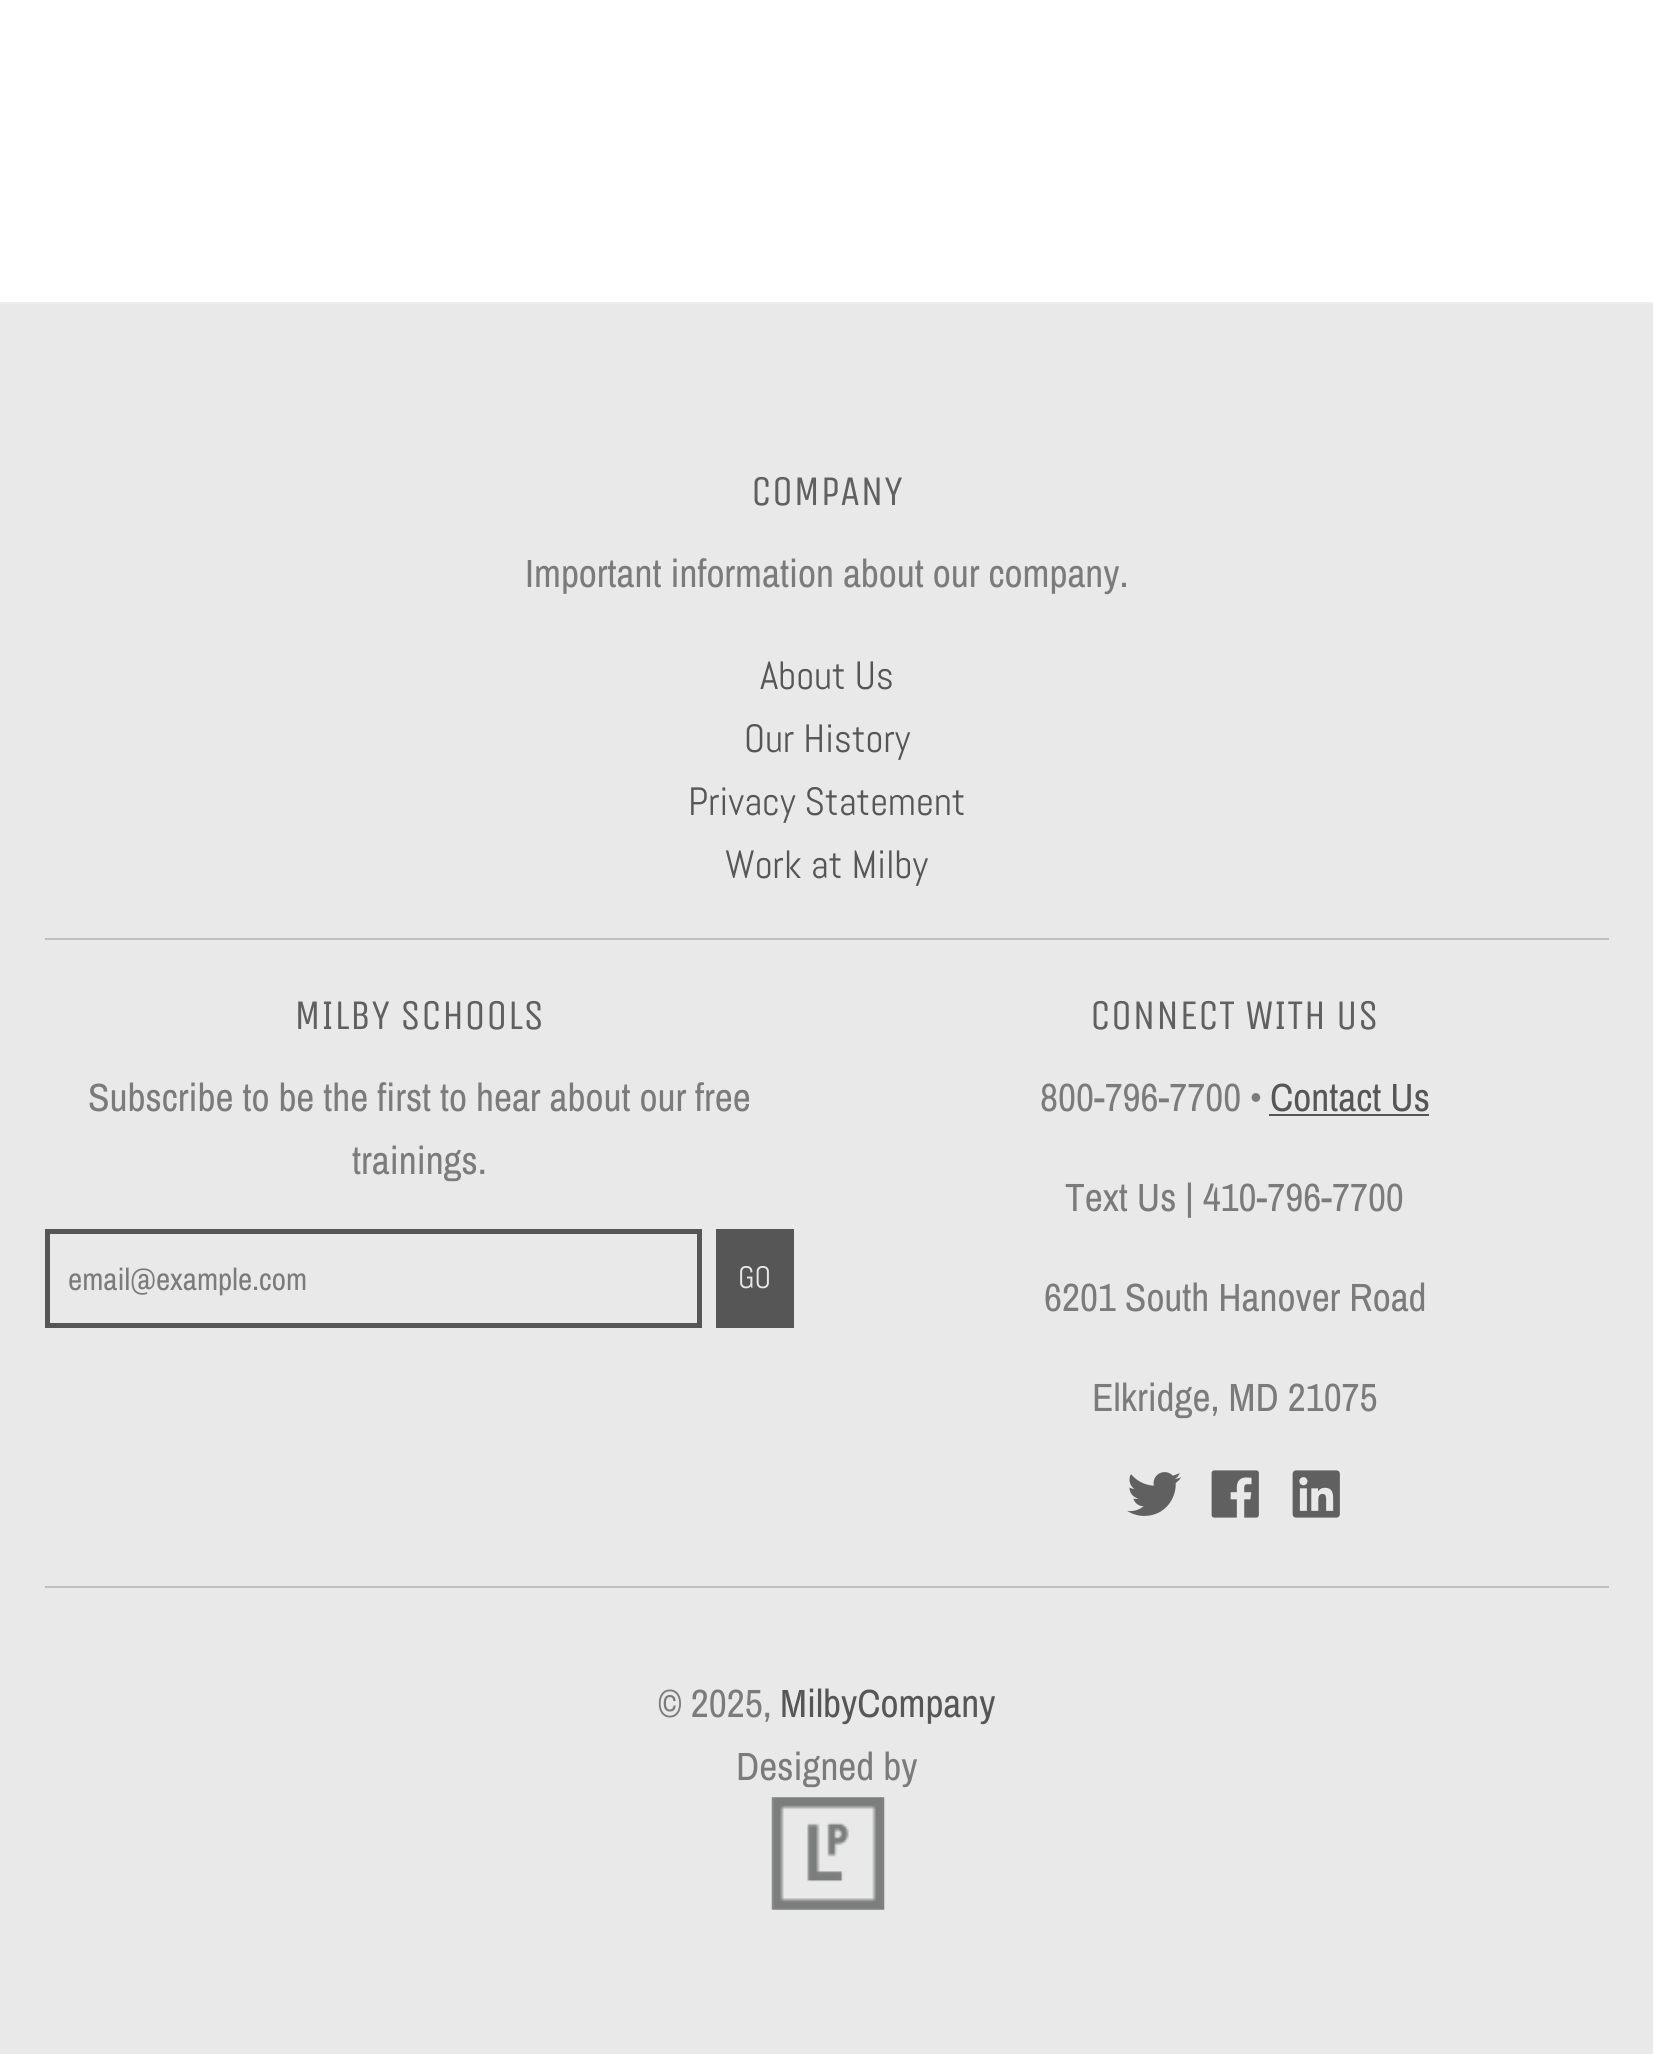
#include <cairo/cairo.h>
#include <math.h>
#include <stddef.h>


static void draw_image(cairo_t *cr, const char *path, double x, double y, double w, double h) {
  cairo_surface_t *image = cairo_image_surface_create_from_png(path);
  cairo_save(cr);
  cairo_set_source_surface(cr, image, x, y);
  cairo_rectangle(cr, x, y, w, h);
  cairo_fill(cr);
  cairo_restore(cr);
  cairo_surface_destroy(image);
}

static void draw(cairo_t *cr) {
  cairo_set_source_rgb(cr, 1, 1, 1);
  cairo_paint(cr);
  cairo_set_source_rgb(cr, 237 / 255.0, 237 / 255.0, 237 / 255.0);
  cairo_rectangle(cr, 0, 302, 1653, 2);
  cairo_fill(cr);
  cairo_set_source_rgb(cr, 233 / 255.0, 233 / 255.0, 233 / 255.0);
  cairo_rectangle(cr, 0, 304, 1653, 1750);
  cairo_fill(cr);
  cairo_set_source_rgb(cr, 191 / 255.0, 191 / 255.0, 191 / 255.0);
  cairo_rectangle(cr, 45, 938, 1564, 2);
  cairo_fill(cr);
  cairo_rectangle(cr, 47.5, 1231.5, 652, 94);
  cairo_set_source_rgb(cr, 86 / 255.0, 86 / 255.0, 86 / 255.0);
  cairo_set_line_width(cr, 5);
  cairo_stroke(cr);
  cairo_rectangle(cr, 716, 1229, 78, 99);
  cairo_fill(cr);
  cairo_rectangle(cr, 1269, 1114, 160, 2);
  cairo_fill(cr);
  draw_image(cr, "images/1.png", 1127, 1472, 54, 44);
  draw_image(cr, "images/2.png", 1211, 1470, 48, 48);
  draw_image(cr, "images/3.png", 1292, 1470, 48, 48);
  cairo_set_source_rgb(cr, 191 / 255.0, 191 / 255.0, 191 / 255.0);
  cairo_rectangle(cr, 45, 1586, 1564, 2);
  cairo_fill(cr);
  draw_image(cr, "images/4.png", 771, 1797, 114, 113);
  cairo_select_font_face(cr, "Unica One", CAIRO_FONT_SLANT_NORMAL, CAIRO_FONT_WEIGHT_NORMAL);
  cairo_set_font_size(cr, 42.25);
  cairo_set_source_rgb(cr, 96 / 255.0, 96 / 255.0, 96 / 255.0);
  cairo_move_to(cr, 751, 505);
  cairo_show_text(cr, "COMPANY");
  cairo_select_font_face(cr, "Archivo Narrow", CAIRO_FONT_SLANT_NORMAL, CAIRO_FONT_WEIGHT_NORMAL);
  cairo_set_font_size(cr, 39.4);
  cairo_set_source_rgb(cr, 123 / 255.0, 123 / 255.0, 123 / 255.0);
  cairo_move_to(cr, 525, 587);
  cairo_show_text(cr, "Important information about our company.");
  cairo_select_font_face(cr, "Abel", CAIRO_FONT_SLANT_NORMAL, CAIRO_FONT_WEIGHT_NORMAL);
  cairo_set_source_rgb(cr, 86 / 255.0, 86 / 255.0, 86 / 255.0);
  cairo_move_to(cr, 760, 689);
  cairo_show_text(cr, "About Us");
  cairo_move_to(cr, 744, 752);
  cairo_show_text(cr, "Our History");
  cairo_move_to(cr, 688, 815);
  cairo_show_text(cr, "Privacy Statement");
  cairo_move_to(cr, 725, 878);
  cairo_show_text(cr, "Work at Milby");
  cairo_select_font_face(cr, "Unica One", CAIRO_FONT_SLANT_NORMAL, CAIRO_FONT_WEIGHT_NORMAL);
  cairo_set_font_size(cr, 42.25);
  cairo_set_source_rgb(cr, 96 / 255.0, 96 / 255.0, 96 / 255.0);
  cairo_move_to(cr, 294, 1029);
  cairo_show_text(cr, "MILBY SCHOOLS");
  cairo_select_font_face(cr, "Archivo Narrow", CAIRO_FONT_SLANT_NORMAL, CAIRO_FONT_WEIGHT_NORMAL);
  cairo_set_font_size(cr, 39.4);
  cairo_set_source_rgb(cr, 123 / 255.0, 123 / 255.0, 123 / 255.0);
  cairo_move_to(cr, 88, 1111);
  cairo_show_text(cr, "Subscribe to be the first to hear about our free");
  cairo_move_to(cr, 352, 1174);
  cairo_show_text(cr, "trainings.");
  cairo_set_font_size(cr, 31);
  cairo_move_to(cr, 68, 1290);
  cairo_show_text(cr, "email@example.com");
  cairo_select_font_face(cr, "Abel", CAIRO_FONT_SLANT_NORMAL, CAIRO_FONT_WEIGHT_NORMAL);
  cairo_set_source_rgb(cr, 233 / 255.0, 233 / 255.0, 233 / 255.0);
  cairo_move_to(cr, 738, 1288);
  cairo_show_text(cr, "GO");
  cairo_select_font_face(cr, "Unica One", CAIRO_FONT_SLANT_NORMAL, CAIRO_FONT_WEIGHT_NORMAL);
  cairo_set_font_size(cr, 42.25);
  cairo_set_source_rgb(cr, 96 / 255.0, 96 / 255.0, 96 / 255.0);
  cairo_move_to(cr, 1090, 1029);
  cairo_show_text(cr, "CONNECT WITH US");
  cairo_select_font_face(cr, "Archivo Narrow", CAIRO_FONT_SLANT_NORMAL, CAIRO_FONT_WEIGHT_NORMAL);
  cairo_set_font_size(cr, 39.4);
  cairo_set_source_rgb(cr, 123 / 255.0, 123 / 255.0, 123 / 255.0);
  cairo_move_to(cr, 1040, 1111);
  cairo_show_text(cr, "800-796-7700 •");
  cairo_set_source_rgb(cr, 86 / 255.0, 86 / 255.0, 86 / 255.0);
  cairo_move_to(cr, 1270, 1111);
  cairo_show_text(cr, "Contact Us");
  cairo_set_source_rgb(cr, 123 / 255.0, 123 / 255.0, 123 / 255.0);
  cairo_move_to(cr, 1065, 1211);
  cairo_show_text(cr, "Text Us | 410-796-7700");
  cairo_move_to(cr, 1044, 1311);
  cairo_show_text(cr, "6201 South Hanover Road");
  cairo_move_to(cr, 1092, 1411);
  cairo_show_text(cr, "Elkridge, MD 21075");
  cairo_move_to(cr, 658, 1717);
  cairo_show_text(cr, "© 2025,");
  cairo_set_source_rgb(cr, 86 / 255.0, 86 / 255.0, 86 / 255.0);
  cairo_move_to(cr, 780, 1717);
  cairo_show_text(cr, "MilbyCompany");
  cairo_set_source_rgb(cr, 123 / 255.0, 123 / 255.0, 123 / 255.0);
  cairo_move_to(cr, 736, 1780);
  cairo_show_text(cr, "Designed by");
}

int main(void) {
  cairo_surface_t *surface = cairo_image_surface_create(CAIRO_FORMAT_RGB24, 1653, 2054);
  cairo_t *cr = cairo_create(surface);
  cairo_font_options_t *options = cairo_font_options_create();
  cairo_font_options_set_hint_metrics(options, CAIRO_HINT_METRICS_OFF);
  cairo_font_options_set_hint_style(options, CAIRO_HINT_STYLE_NONE);
  cairo_set_font_options(cr, options);
  cairo_set_miter_limit(cr, 4);
  draw(cr);
  cairo_surface_write_to_png(surface, "out.png");
  cairo_font_options_destroy(options);
  cairo_destroy(cr);
  cairo_surface_destroy(surface);
  return 0;
}
